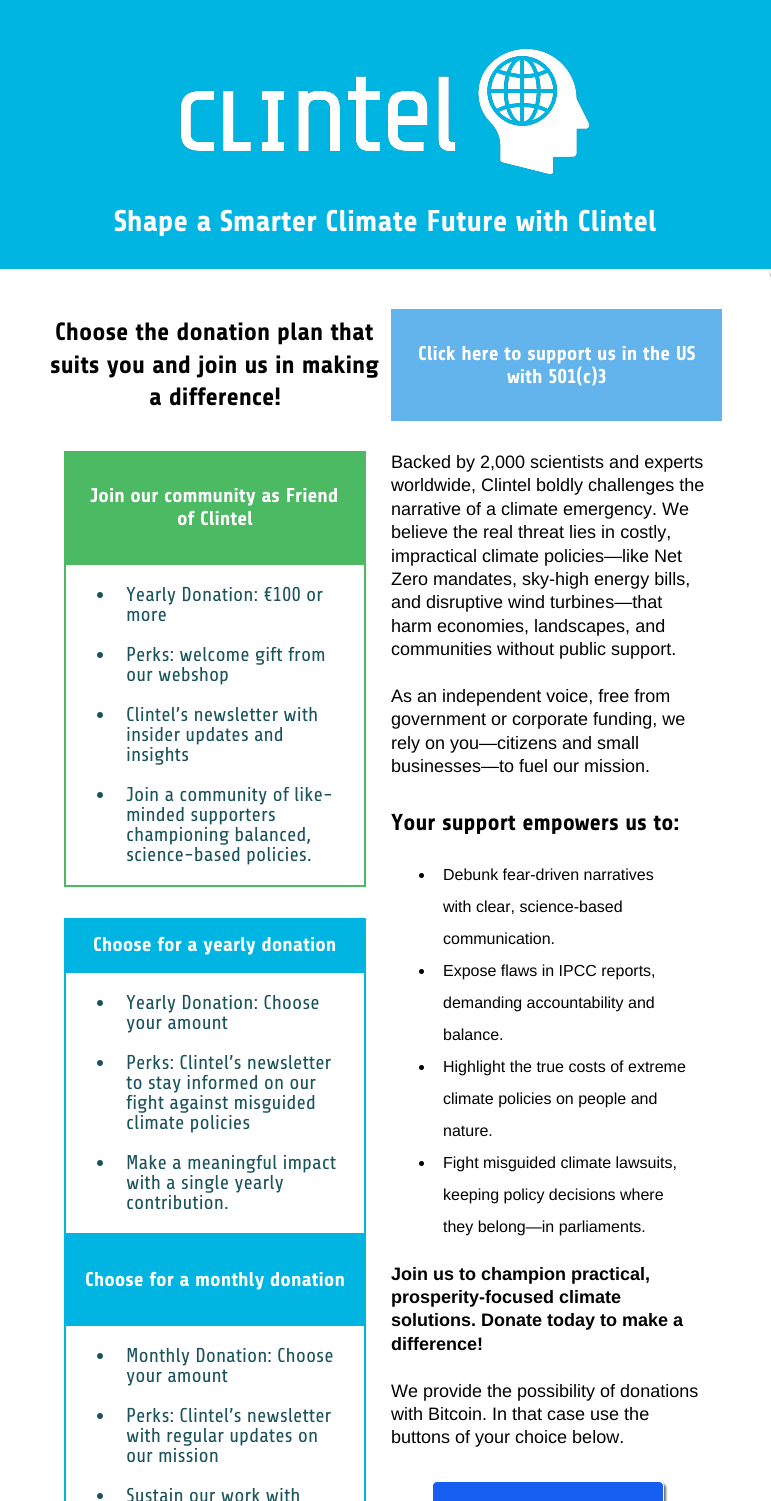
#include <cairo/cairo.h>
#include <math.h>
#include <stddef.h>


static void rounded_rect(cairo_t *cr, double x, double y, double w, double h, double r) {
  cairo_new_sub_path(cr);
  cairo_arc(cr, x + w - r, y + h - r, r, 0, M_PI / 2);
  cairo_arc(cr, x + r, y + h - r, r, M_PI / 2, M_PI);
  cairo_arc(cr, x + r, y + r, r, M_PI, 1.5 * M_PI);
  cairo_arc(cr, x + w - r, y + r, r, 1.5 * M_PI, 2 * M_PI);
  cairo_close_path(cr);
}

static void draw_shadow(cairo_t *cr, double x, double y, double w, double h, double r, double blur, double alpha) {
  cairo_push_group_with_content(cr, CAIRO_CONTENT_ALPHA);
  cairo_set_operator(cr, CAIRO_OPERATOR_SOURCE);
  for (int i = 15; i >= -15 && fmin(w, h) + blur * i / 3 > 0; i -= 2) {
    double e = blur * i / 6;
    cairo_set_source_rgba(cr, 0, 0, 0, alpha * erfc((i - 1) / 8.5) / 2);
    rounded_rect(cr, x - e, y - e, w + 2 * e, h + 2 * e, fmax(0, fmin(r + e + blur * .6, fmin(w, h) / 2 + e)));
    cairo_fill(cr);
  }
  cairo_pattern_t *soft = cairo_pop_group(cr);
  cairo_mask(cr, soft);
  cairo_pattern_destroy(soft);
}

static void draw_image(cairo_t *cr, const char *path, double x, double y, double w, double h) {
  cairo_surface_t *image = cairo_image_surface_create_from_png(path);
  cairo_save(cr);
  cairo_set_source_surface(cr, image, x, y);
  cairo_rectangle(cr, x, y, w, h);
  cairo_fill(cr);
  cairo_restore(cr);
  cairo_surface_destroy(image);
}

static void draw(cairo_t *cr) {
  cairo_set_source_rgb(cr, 1, 1, 1);
  cairo_paint(cr);
  cairo_set_source_rgb(cr, 0, 181 / 255.0, 226 / 255.0);
  cairo_rectangle(cr, 0, 0, 771, 269);
  cairo_fill(cr);
  draw_image(cr, "images/1.png", 180, 48, 410, 127);
  cairo_save(cr);
  cairo_set_fill_rule(cr, CAIRO_FILL_RULE_EVEN_ODD);
  cairo_new_path(cr);
  cairo_move_to(cr, 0, 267);
  cairo_line_to(cr, 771, 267);
  cairo_line_to(cr, 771, 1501);
  cairo_line_to(cr, 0, 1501);
  cairo_close_path(cr);
  cairo_move_to(cr, 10, 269);
  cairo_line_to(cr, 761, 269);
  cairo_curve_to(cr, 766.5, 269, 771, 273.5, 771, 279);
  cairo_line_to(cr, 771, 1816);
  cairo_curve_to(cr, 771, 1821.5, 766.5, 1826, 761, 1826);
  cairo_line_to(cr, 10, 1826);
  cairo_curve_to(cr, 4.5, 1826, 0, 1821.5, 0, 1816);
  cairo_line_to(cr, 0, 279);
  cairo_curve_to(cr, 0, 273.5, 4.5, 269, 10, 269);
  cairo_close_path(cr);
  cairo_clip(cr);
  cairo_set_source_rgb(cr, 112 / 255.0, 112 / 255.0, 112 / 255.0);
  draw_shadow(cr, 2, 271, 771, 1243, 10, 1, 1);
  cairo_restore(cr);
  cairo_set_source_rgb(cr, 99 / 255.0, 179 / 255.0, 237 / 255.0);
  cairo_rectangle(cr, 391, 309, 331, 112);
  cairo_fill(cr);
  cairo_set_source_rgb(cr, 76 / 255.0, 185 / 255.0, 99 / 255.0);
  cairo_rectangle(cr, 64, 451, 302, 112);
  cairo_fill(cr);
  cairo_rectangle(cr, 65, 564, 300, 322);
  cairo_stroke(cr);
  cairo_set_source_rgb(cr, 26 / 255.0, 83 / 255.0, 92 / 255.0);
  cairo_arc(cr, 100, 595, 3, 0, 2 * M_PI);
  cairo_fill(cr);
  cairo_arc(cr, 100, 655, 3, 0, 2 * M_PI);
  cairo_fill(cr);
  cairo_arc(cr, 100, 715, 3, 0, 2 * M_PI);
  cairo_fill(cr);
  cairo_arc(cr, 100, 795, 3, 0, 2 * M_PI);
  cairo_fill(cr);
  cairo_set_source_rgb(cr, 0, 181 / 255.0, 226 / 255.0);
  cairo_rectangle(cr, 64, 918, 302, 53);
  cairo_fill(cr);
  cairo_rectangle(cr, 65, 972, 300, 262);
  cairo_stroke(cr);
  cairo_set_source_rgb(cr, 26 / 255.0, 83 / 255.0, 92 / 255.0);
  cairo_arc(cr, 100, 1003, 3, 0, 2 * M_PI);
  cairo_fill(cr);
  cairo_arc(cr, 100, 1063, 3, 0, 2 * M_PI);
  cairo_fill(cr);
  cairo_arc(cr, 100, 1163, 3, 0, 2 * M_PI);
  cairo_fill(cr);
  cairo_set_source_rgb(cr, 0, 181 / 255.0, 226 / 255.0);
  cairo_rectangle(cr, 64, 1235, 302, 89);
  cairo_fill(cr);
  cairo_rectangle(cr, 65, 1325, 300, 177);
  cairo_stroke(cr);
  cairo_set_source_rgb(cr, 26 / 255.0, 83 / 255.0, 92 / 255.0);
  cairo_arc(cr, 100, 1356, 3, 0, 2 * M_PI);
  cairo_fill(cr);
  cairo_arc(cr, 100, 1416, 3, 0, 2 * M_PI);
  cairo_fill(cr);
  cairo_arc(cr, 100, 1496, 3, 0, 2 * M_PI);
  cairo_fill(cr);
  cairo_set_source_rgb(cr, 0, 0, 0);
  cairo_arc(cr, 421.5, 875.5, 2.5, 0, 2 * M_PI);
  cairo_fill(cr);
  cairo_arc(cr, 421.5, 971.5, 2.5, 0, 2 * M_PI);
  cairo_fill(cr);
  cairo_arc(cr, 421.5, 1067.5, 2.5, 0, 2 * M_PI);
  cairo_fill(cr);
  cairo_arc(cr, 421.5, 1163.5, 2.5, 0, 2 * M_PI);
  cairo_fill(cr);
  cairo_set_source_rgb(cr, 112 / 255.0, 112 / 255.0, 112 / 255.0);
  draw_shadow(cr, 434, 1483, 232, 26, 5, 1, 1);
  cairo_set_source_rgb(cr, 21 / 255.0, 94 / 255.0, 239 / 255.0);
  rounded_rect(cr, 432.5, 1481.5, 231, 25, 4.5);
  cairo_fill_preserve(cr);
  cairo_set_source_rgb(cr, 1, 1, 1);
  cairo_set_line_width(cr, 1);
  cairo_stroke(cr);
  cairo_select_font_face(cr, "Share", CAIRO_FONT_SLANT_NORMAL, CAIRO_FONT_WEIGHT_BOLD);
  cairo_set_font_size(cr, 30);
  cairo_move_to(cr, 114, 231);
  cairo_show_text(cr, "Shape a Smarter Climate Future with Clintel");
  cairo_set_font_size(cr, 25);
  cairo_set_source_rgb(cr, 0, 0, 0);
  cairo_move_to(cr, 55, 340);
  cairo_show_text(cr, "Choose the donation plan that");
  cairo_move_to(cr, 50, 373);
  cairo_show_text(cr, "suits you and join us in making");
  cairo_move_to(cr, 149, 405);
  cairo_show_text(cr, "a difference!");
  cairo_set_font_size(cr, 20);
  cairo_set_source_rgb(cr, 1, 1, 1);
  cairo_move_to(cr, 418, 360);
  cairo_show_text(cr, "Click here to support us in the US");
  cairo_move_to(cr, 507, 383);
  cairo_show_text(cr, "with 501(c)3");
  cairo_move_to(cr, 90, 502);
  cairo_show_text(cr, "Join our community as Friend");
  cairo_move_to(cr, 177, 525);
  cairo_show_text(cr, "of Clintel");
  cairo_select_font_face(cr, "Share", CAIRO_FONT_SLANT_NORMAL, CAIRO_FONT_WEIGHT_NORMAL);
  cairo_set_source_rgb(cr, 26 / 255.0, 83 / 255.0, 92 / 255.0);
  cairo_move_to(cr, 126, 601);
  cairo_show_text(cr, "Yearly Donation: €100 or");
  cairo_move_to(cr, 126, 621);
  cairo_show_text(cr, "more");
  cairo_move_to(cr, 126, 661);
  cairo_show_text(cr, "Perks: welcome gift from");
  cairo_move_to(cr, 126, 681);
  cairo_show_text(cr, "our webshop");
  cairo_move_to(cr, 126, 721);
  cairo_show_text(cr, "Clintel’s newsletter with");
  cairo_move_to(cr, 126, 741);
  cairo_show_text(cr, "insider updates and");
  cairo_move_to(cr, 126, 761);
  cairo_show_text(cr, "insights");
  cairo_move_to(cr, 126, 801);
  cairo_show_text(cr, "Join a community of like-");
  cairo_move_to(cr, 126, 821);
  cairo_show_text(cr, "minded supporters");
  cairo_move_to(cr, 126, 841);
  cairo_show_text(cr, "championing balanced,");
  cairo_move_to(cr, 126, 861);
  cairo_show_text(cr, "science-based policies.");
  cairo_select_font_face(cr, "Share", CAIRO_FONT_SLANT_NORMAL, CAIRO_FONT_WEIGHT_BOLD);
  cairo_set_source_rgb(cr, 1, 1, 1);
  cairo_move_to(cr, 93, 951);
  cairo_show_text(cr, "Choose for a yearly donation");
  cairo_select_font_face(cr, "Share", CAIRO_FONT_SLANT_NORMAL, CAIRO_FONT_WEIGHT_NORMAL);
  cairo_set_source_rgb(cr, 26 / 255.0, 83 / 255.0, 92 / 255.0);
  cairo_move_to(cr, 126, 1009);
  cairo_show_text(cr, "Yearly Donation: Choose");
  cairo_move_to(cr, 126, 1029);
  cairo_show_text(cr, "your amount");
  cairo_move_to(cr, 126, 1069);
  cairo_show_text(cr, "Perks: Clintel’s newsletter");
  cairo_move_to(cr, 126, 1089);
  cairo_show_text(cr, "to stay informed on our");
  cairo_move_to(cr, 126, 1109);
  cairo_show_text(cr, "fight against misguided");
  cairo_move_to(cr, 126, 1129);
  cairo_show_text(cr, "climate policies");
  cairo_move_to(cr, 126, 1169);
  cairo_show_text(cr, "Make a meaningful impact");
  cairo_move_to(cr, 126, 1189);
  cairo_show_text(cr, "with a single yearly");
  cairo_move_to(cr, 126, 1209);
  cairo_show_text(cr, "contribution.");
  cairo_select_font_face(cr, "Share", CAIRO_FONT_SLANT_NORMAL, CAIRO_FONT_WEIGHT_BOLD);
  cairo_set_source_rgb(cr, 1, 1, 1);
  cairo_move_to(cr, 85, 1286);
  cairo_show_text(cr, "Choose for a monthly donation");
  cairo_select_font_face(cr, "Share", CAIRO_FONT_SLANT_NORMAL, CAIRO_FONT_WEIGHT_NORMAL);
  cairo_set_source_rgb(cr, 26 / 255.0, 83 / 255.0, 92 / 255.0);
  cairo_move_to(cr, 126, 1362);
  cairo_show_text(cr, "Monthly Donation: Choose");
  cairo_move_to(cr, 126, 1382);
  cairo_show_text(cr, "your amount");
  cairo_move_to(cr, 126, 1422);
  cairo_show_text(cr, "Perks: Clintel’s newsletter");
  cairo_move_to(cr, 126, 1442);
  cairo_show_text(cr, "with regular updates on");
  cairo_move_to(cr, 126, 1462);
  cairo_show_text(cr, "our mission");
  cairo_move_to(cr, 126, 1502);
  cairo_show_text(cr, "Sustain our work with");
  cairo_select_font_face(cr, "Liberation Sans", CAIRO_FONT_SLANT_NORMAL, CAIRO_FONT_WEIGHT_NORMAL);
  cairo_set_font_size(cr, 18);
  cairo_set_source_rgb(cr, 0, 0, 0);
  cairo_move_to(cr, 391, 468);
  cairo_show_text(cr, "Backed by 2,000 scientists and experts");
  cairo_move_to(cr, 391, 491);
  cairo_show_text(cr, "worldwide, Clintel boldly challenges the");
  cairo_move_to(cr, 391, 515);
  cairo_show_text(cr, "narrative of a climate emergency. We");
  cairo_move_to(cr, 391, 538);
  cairo_show_text(cr, "believe the real threat lies in costly,");
  cairo_move_to(cr, 391, 562);
  cairo_show_text(cr, "impractical climate policies—like Net");
  cairo_move_to(cr, 391, 585);
  cairo_show_text(cr, "Zero mandates, sky-high energy bills,");
  cairo_move_to(cr, 391, 608);
  cairo_show_text(cr, "and disruptive wind turbines—that");
  cairo_move_to(cr, 391, 632);
  cairo_show_text(cr, "harm economies, landscapes, and");
  cairo_move_to(cr, 391, 655);
  cairo_show_text(cr, "communities without public support.");
  cairo_move_to(cr, 391, 702);
  cairo_show_text(cr, "As an independent voice, free from");
  cairo_move_to(cr, 391, 725);
  cairo_show_text(cr, "government or corporate funding, we");
  cairo_move_to(cr, 391, 749);
  cairo_show_text(cr, "rely on you—citizens and small");
  cairo_move_to(cr, 391, 772);
  cairo_show_text(cr, "businesses—to fuel our mission.");
  cairo_select_font_face(cr, "Share", CAIRO_FONT_SLANT_NORMAL, CAIRO_FONT_WEIGHT_BOLD);
  cairo_set_font_size(cr, 23);
  cairo_move_to(cr, 391, 830);
  cairo_show_text(cr, "Your support empowers us to:");
  cairo_select_font_face(cr, "Liberation Sans", CAIRO_FONT_SLANT_NORMAL, CAIRO_FONT_WEIGHT_NORMAL);
  cairo_set_font_size(cr, 16);
  cairo_move_to(cr, 443, 880);
  cairo_show_text(cr, "Debunk fear-driven narratives");
  cairo_move_to(cr, 443, 912);
  cairo_show_text(cr, "with clear, science-based");
  cairo_move_to(cr, 443, 944);
  cairo_show_text(cr, "communication.");
  cairo_move_to(cr, 443, 976);
  cairo_show_text(cr, "Expose flaws in IPCC reports,");
  cairo_move_to(cr, 443, 1008);
  cairo_show_text(cr, "demanding accountability and");
  cairo_move_to(cr, 443, 1040);
  cairo_show_text(cr, "balance.");
  cairo_move_to(cr, 443, 1072);
  cairo_show_text(cr, "Highlight the true costs of extreme");
  cairo_move_to(cr, 443, 1104);
  cairo_show_text(cr, "climate policies on people and");
  cairo_move_to(cr, 443, 1136);
  cairo_show_text(cr, "nature.");
  cairo_move_to(cr, 443, 1168);
  cairo_show_text(cr, "Fight misguided climate lawsuits,");
  cairo_move_to(cr, 443, 1200);
  cairo_show_text(cr, "keeping policy decisions where");
  cairo_move_to(cr, 443, 1232);
  cairo_show_text(cr, "they belong—in parliaments.");
  cairo_select_font_face(cr, "Liberation Sans", CAIRO_FONT_SLANT_NORMAL, CAIRO_FONT_WEIGHT_BOLD);
  cairo_set_font_size(cr, 18);
  cairo_move_to(cr, 391, 1280);
  cairo_show_text(cr, "Join us to champion practical,");
  cairo_move_to(cr, 391, 1303);
  cairo_show_text(cr, "prosperity-focused climate");
  cairo_move_to(cr, 391, 1326);
  cairo_show_text(cr, "solutions. Donate today to make a");
  cairo_move_to(cr, 391, 1350);
  cairo_show_text(cr, "difference!");
  cairo_select_font_face(cr, "Liberation Sans", CAIRO_FONT_SLANT_NORMAL, CAIRO_FONT_WEIGHT_NORMAL);
  cairo_move_to(cr, 391, 1397);
  cairo_show_text(cr, "We provide the possibility of donations");
  cairo_move_to(cr, 391, 1420);
  cairo_show_text(cr, "with Bitcoin. In that case use the");
  cairo_move_to(cr, 391, 1443);
  cairo_show_text(cr, "buttons of your choice below.");
}

int main(void) {
  cairo_surface_t *surface = cairo_image_surface_create(CAIRO_FORMAT_RGB24, 771, 1501);
  cairo_t *cr = cairo_create(surface);
  cairo_font_options_t *options = cairo_font_options_create();
  cairo_font_options_set_hint_metrics(options, CAIRO_HINT_METRICS_OFF);
  cairo_font_options_set_hint_style(options, CAIRO_HINT_STYLE_NONE);
  cairo_set_font_options(cr, options);
  cairo_set_miter_limit(cr, 4);
  draw(cr);
  cairo_surface_write_to_png(surface, "out.png");
  cairo_font_options_destroy(options);
  cairo_destroy(cr);
  cairo_surface_destroy(surface);
  return 0;
}
